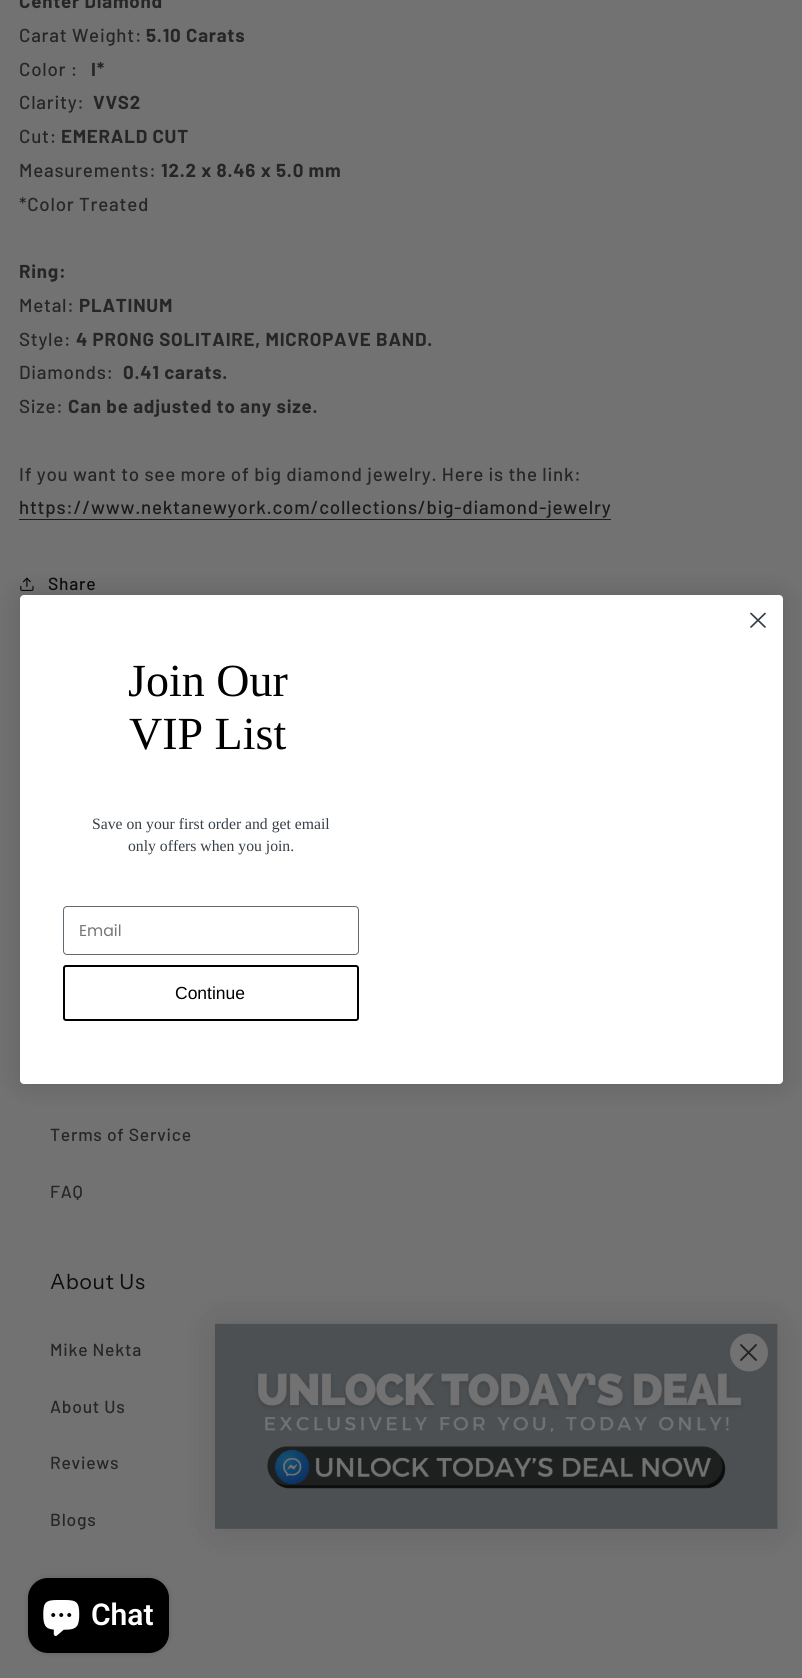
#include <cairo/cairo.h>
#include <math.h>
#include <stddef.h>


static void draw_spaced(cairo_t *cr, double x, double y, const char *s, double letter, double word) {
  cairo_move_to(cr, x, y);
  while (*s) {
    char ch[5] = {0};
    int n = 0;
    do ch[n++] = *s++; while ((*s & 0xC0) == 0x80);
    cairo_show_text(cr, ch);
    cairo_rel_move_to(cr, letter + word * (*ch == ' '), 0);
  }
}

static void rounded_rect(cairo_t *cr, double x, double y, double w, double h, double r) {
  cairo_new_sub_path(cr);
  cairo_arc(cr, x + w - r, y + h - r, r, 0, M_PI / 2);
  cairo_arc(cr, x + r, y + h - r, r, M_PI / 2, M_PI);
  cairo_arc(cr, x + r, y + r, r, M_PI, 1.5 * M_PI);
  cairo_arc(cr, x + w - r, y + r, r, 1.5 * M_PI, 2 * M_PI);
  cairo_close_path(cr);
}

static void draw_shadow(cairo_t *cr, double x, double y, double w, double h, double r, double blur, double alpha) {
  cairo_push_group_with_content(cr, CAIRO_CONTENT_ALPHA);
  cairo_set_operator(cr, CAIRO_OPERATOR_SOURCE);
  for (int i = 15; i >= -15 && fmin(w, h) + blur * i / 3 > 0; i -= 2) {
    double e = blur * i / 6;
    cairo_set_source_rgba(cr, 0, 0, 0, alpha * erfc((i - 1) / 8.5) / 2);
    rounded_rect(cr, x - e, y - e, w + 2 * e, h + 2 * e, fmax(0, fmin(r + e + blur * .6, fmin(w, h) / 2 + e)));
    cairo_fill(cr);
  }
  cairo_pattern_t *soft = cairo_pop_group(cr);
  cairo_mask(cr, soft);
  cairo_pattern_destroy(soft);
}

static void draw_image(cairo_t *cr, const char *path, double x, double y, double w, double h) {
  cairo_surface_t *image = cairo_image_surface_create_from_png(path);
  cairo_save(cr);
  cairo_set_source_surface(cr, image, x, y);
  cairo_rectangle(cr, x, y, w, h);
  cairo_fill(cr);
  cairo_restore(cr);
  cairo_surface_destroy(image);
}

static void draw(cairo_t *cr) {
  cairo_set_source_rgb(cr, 114 / 255.0, 114 / 255.0, 114 / 255.0);
  cairo_paint(cr);
  cairo_set_source_rgb(cr, 27 / 255.0, 27 / 255.0, 27 / 255.0);
  cairo_rectangle(cr, 19, 519, 592, 1);
  cairo_fill(cr);
  draw_image(cr, "images/1.png", 20, 577, 14, 14);
  cairo_set_source_rgb(cr, 0, 0, 0);
  draw_shadow(cr, 20, 595, 763, 489, 4, 14.5, 0.15);
  cairo_set_source_rgb(cr, 1, 1, 1);
  rounded_rect(cr, 20, 595, 763, 489, 4);
  cairo_fill(cr);
  cairo_new_path(cr);
  cairo_move_to(cr, 751, 613.5);
  cairo_line_to(cr, 765, 627);
  cairo_move_to(cr, 751, 627);
  cairo_line_to(cr, 765, 613.5);
  cairo_close_path(cr);
  cairo_set_source_rgb(cr, 55 / 255.0, 63 / 255.0, 71 / 255.0);
  cairo_set_line_width(cr, 1.7);
  cairo_set_line_cap(cr, CAIRO_LINE_CAP_ROUND);
  cairo_set_line_join(cr, CAIRO_LINE_JOIN_ROUND);
  cairo_stroke(cr);
  rounded_rect(cr, 63.5, 906.5, 295, 48, 3.5);
  cairo_set_source_rgb(cr, 96 / 255.0, 106 / 255.0, 114 / 255.0);
  cairo_set_line_width(cr, 1);
  cairo_set_line_cap(cr, CAIRO_LINE_CAP_BUTT);
  cairo_set_line_join(cr, CAIRO_LINE_JOIN_MITER);
  cairo_stroke(cr);
  rounded_rect(cr, 64, 966, 294, 54, 2);
  cairo_set_source_rgb(cr, 0, 0, 0);
  cairo_set_line_width(cr, 2);
  cairo_stroke(cr);
  cairo_set_source_rgb(cr, 12 / 255.0, 12 / 255.0, 12 / 255.0);
  draw_shadow(cr, 215, 1324, 563, 205, 5, 19, 0.15);
  cairo_set_source_rgb(cr, 114 / 255.0, 114 / 255.0, 114 / 255.0);
  rounded_rect(cr, 215, 1324, 563, 205, 5);
  cairo_fill(cr);
  draw_image(cr, "images/2.png", 215, 1323, 563, 206);
  cairo_arc(cr, 749, 1352.5, 18, 0, 2 * M_PI);
  cairo_fill_preserve(cr);
  cairo_set_line_width(cr, 1.9);
  cairo_stroke(cr);
  cairo_new_path(cr);
  cairo_move_to(cr, 741, 1345);
  cairo_line_to(cr, 756, 1360);
  cairo_move_to(cr, 741, 1360);
  cairo_line_to(cr, 756, 1345);
  cairo_close_path(cr);
  cairo_set_source_rgb(cr, 34 / 255.0, 37 / 255.0, 40 / 255.0);
  cairo_set_line_cap(cr, CAIRO_LINE_CAP_ROUND);
  cairo_set_line_join(cr, CAIRO_LINE_JOIN_ROUND);
  cairo_stroke(cr);
  cairo_set_source_rgb(cr, 0, 0, 0);
  draw_shadow(cr, 28, 1578, 141, 75, 20, 3, 0.15);
  cairo_set_source_rgb(cr, 0, 0, 0);
  rounded_rect(cr, 28, 1578, 141, 75, 20);
  cairo_fill(cr);
  draw_image(cr, "images/3.png", 43, 1600, 37, 36);
  cairo_select_font_face(cr, "Barlow", CAIRO_FONT_SLANT_NORMAL, CAIRO_FONT_WEIGHT_BOLD);
  cairo_set_font_size(cr, 18.75);
  cairo_set_source_rgb(cr, 38 / 255.0, 38 / 255.0, 38 / 255.0);
  draw_spaced(cr, 19, 8, "Center Diamond", 0.75, 0);
  cairo_select_font_face(cr, "Barlow Medium", CAIRO_FONT_SLANT_NORMAL, CAIRO_FONT_WEIGHT_NORMAL);
  draw_spaced(cr, 19, 42, "Carat Weight:", 0.75, 0);
  cairo_select_font_face(cr, "Barlow", CAIRO_FONT_SLANT_NORMAL, CAIRO_FONT_WEIGHT_BOLD);
  draw_spaced(cr, 146, 42, "5.10 Carats", 0.75, 0);
  cairo_select_font_face(cr, "Barlow Medium", CAIRO_FONT_SLANT_NORMAL, CAIRO_FONT_WEIGHT_NORMAL);
  draw_spaced(cr, 19, 76, "Color :", 0.75, 0);
  cairo_select_font_face(cr, "Barlow", CAIRO_FONT_SLANT_NORMAL, CAIRO_FONT_WEIGHT_BOLD);
  draw_spaced(cr, 91, 76, "I*", 0.75, 0);
  cairo_select_font_face(cr, "Barlow Medium", CAIRO_FONT_SLANT_NORMAL, CAIRO_FONT_WEIGHT_NORMAL);
  draw_spaced(cr, 19, 109, "Clarity:", 0.75, 0);
  cairo_select_font_face(cr, "Barlow", CAIRO_FONT_SLANT_NORMAL, CAIRO_FONT_WEIGHT_BOLD);
  draw_spaced(cr, 93, 109, "VVS2", 0.75, 0);
  cairo_select_font_face(cr, "Barlow Medium", CAIRO_FONT_SLANT_NORMAL, CAIRO_FONT_WEIGHT_NORMAL);
  draw_spaced(cr, 19, 143, "Cut:", 0.75, 0);
  cairo_select_font_face(cr, "Barlow", CAIRO_FONT_SLANT_NORMAL, CAIRO_FONT_WEIGHT_BOLD);
  draw_spaced(cr, 61, 143, "EMERALD CUT", 0.75, 0);
  cairo_select_font_face(cr, "Barlow Medium", CAIRO_FONT_SLANT_NORMAL, CAIRO_FONT_WEIGHT_NORMAL);
  draw_spaced(cr, 19, 177, "Measurements:", 0.75, 0);
  cairo_select_font_face(cr, "Barlow", CAIRO_FONT_SLANT_NORMAL, CAIRO_FONT_WEIGHT_BOLD);
  draw_spaced(cr, 161, 177, "12.2 x 8.46 x 5.0 mm", 0.75, 0);
  cairo_select_font_face(cr, "Barlow Medium", CAIRO_FONT_SLANT_NORMAL, CAIRO_FONT_WEIGHT_NORMAL);
  draw_spaced(cr, 19, 211, "*Color Treated", 0.75, 0);
  cairo_select_font_face(cr, "Barlow", CAIRO_FONT_SLANT_NORMAL, CAIRO_FONT_WEIGHT_BOLD);
  draw_spaced(cr, 19, 278, "Ring:", 0.75, 0);
  cairo_select_font_face(cr, "Barlow Medium", CAIRO_FONT_SLANT_NORMAL, CAIRO_FONT_WEIGHT_NORMAL);
  draw_spaced(cr, 19, 312, "Metal:", 0.75, 0);
  cairo_select_font_face(cr, "Barlow", CAIRO_FONT_SLANT_NORMAL, CAIRO_FONT_WEIGHT_BOLD);
  draw_spaced(cr, 79, 312, "PLATINUM", 0.75, 0);
  cairo_select_font_face(cr, "Barlow Medium", CAIRO_FONT_SLANT_NORMAL, CAIRO_FONT_WEIGHT_NORMAL);
  draw_spaced(cr, 19, 346, "Style:", 0.75, 0);
  cairo_select_font_face(cr, "Barlow", CAIRO_FONT_SLANT_NORMAL, CAIRO_FONT_WEIGHT_BOLD);
  draw_spaced(cr, 76, 346, "4 PRONG SOLITAIRE, MICROPAVE BAND.", 0.75, 0);
  cairo_select_font_face(cr, "Barlow Medium", CAIRO_FONT_SLANT_NORMAL, CAIRO_FONT_WEIGHT_NORMAL);
  draw_spaced(cr, 19, 379, "Diamonds:", 0.75, 0);
  cairo_select_font_face(cr, "Barlow", CAIRO_FONT_SLANT_NORMAL, CAIRO_FONT_WEIGHT_BOLD);
  draw_spaced(cr, 123, 379, "0.41 carats.", 0.75, 0);
  cairo_select_font_face(cr, "Barlow Medium", CAIRO_FONT_SLANT_NORMAL, CAIRO_FONT_WEIGHT_NORMAL);
  draw_spaced(cr, 19, 413, "Size:", 0.75, 0);
  cairo_select_font_face(cr, "Barlow", CAIRO_FONT_SLANT_NORMAL, CAIRO_FONT_WEIGHT_BOLD);
  draw_spaced(cr, 68, 413, "Can be adjusted to any size.", 0.75, 0);
  cairo_select_font_face(cr, "Barlow Medium", CAIRO_FONT_SLANT_NORMAL, CAIRO_FONT_WEIGHT_NORMAL);
  draw_spaced(cr, 19, 481, "If you want to see more of big diamond jewelry. Here is the link:", 0.75, 0);
  cairo_set_source_rgb(cr, 27 / 255.0, 27 / 255.0, 27 / 255.0);
  draw_spaced(cr, 19, 514, "https://www.nektanewyork.com/collections/big-diamond-jewelry", 0.75, 0);
  cairo_set_font_size(cr, 17.5);
  cairo_set_source_rgb(cr, 12 / 255.0, 12 / 255.0, 12 / 255.0);
  draw_spaced(cr, 48, 590, "Share", 0.75, 0);
  cairo_select_font_face(cr, "Liberation Serif", CAIRO_FONT_SLANT_NORMAL, CAIRO_FONT_WEIGHT_NORMAL);
  cairo_set_font_size(cr, 46);
  cairo_set_source_rgb(cr, 0, 0, 0);
  cairo_move_to(cr, 128, 696);
  cairo_show_text(cr, "Join Our");
  cairo_move_to(cr, 129, 749);
  cairo_show_text(cr, "VIP List");
  cairo_set_font_size(cr, 15.7);
  cairo_set_source_rgb(cr, 55 / 255.0, 63 / 255.0, 71 / 255.0);
  cairo_move_to(cr, 92, 829);
  cairo_show_text(cr, "Save on your first order and get email");
  cairo_move_to(cr, 128, 851);
  cairo_show_text(cr, "only offers when you join.");
  cairo_select_font_face(cr, "Poppins", CAIRO_FONT_SLANT_NORMAL, CAIRO_FONT_WEIGHT_NORMAL);
  cairo_set_source_rgb(cr, 118 / 255.0, 118 / 255.0, 118 / 255.0);
  cairo_move_to(cr, 79, 936);
  cairo_show_text(cr, "Email");
  cairo_select_font_face(cr, "Liberation Sans", CAIRO_FONT_SLANT_NORMAL, CAIRO_FONT_WEIGHT_NORMAL);
  cairo_set_font_size(cr, 17.5);
  cairo_set_source_rgb(cr, 0, 0, 0);
  cairo_move_to(cr, 175, 999);
  cairo_show_text(cr, "Continue");
  cairo_select_font_face(cr, "Barlow Medium", CAIRO_FONT_SLANT_NORMAL, CAIRO_FONT_WEIGHT_NORMAL);
  cairo_set_source_rgb(cr, 38 / 255.0, 38 / 255.0, 38 / 255.0);
  draw_spaced(cr, 50, 1141, "Terms of Service", 0.75, 0);
  draw_spaced(cr, 50, 1198, "FAQ", 0.75, 0);
  cairo_select_font_face(cr, "Instrument Sans", CAIRO_FONT_SLANT_NORMAL, CAIRO_FONT_WEIGHT_NORMAL);
  cairo_set_font_size(cr, 21);
  cairo_set_source_rgb(cr, 12 / 255.0, 12 / 255.0, 12 / 255.0);
  draw_spaced(cr, 50, 1289, "About Us", 0.75, 0);
  cairo_select_font_face(cr, "Barlow Medium", CAIRO_FONT_SLANT_NORMAL, CAIRO_FONT_WEIGHT_NORMAL);
  cairo_set_font_size(cr, 17.5);
  cairo_set_source_rgb(cr, 38 / 255.0, 38 / 255.0, 38 / 255.0);
  draw_spaced(cr, 50, 1356, "Mike Nekta", 0.75, 0);
  draw_spaced(cr, 50, 1413, "About Us", 0.75, 0);
  draw_spaced(cr, 50, 1469, "Reviews", 0.75, 0);
  draw_spaced(cr, 50, 1526, "Blogs", 0.75, 0);
  cairo_select_font_face(cr, "Roboto SemiBold", CAIRO_FONT_SLANT_NORMAL, CAIRO_FONT_WEIGHT_NORMAL);
  cairo_set_font_size(cr, 30);
  cairo_set_source_rgb(cr, 1, 1, 1);
  cairo_move_to(cr, 91, 1625);
  cairo_show_text(cr, "Chat");
}

int main(void) {
  cairo_surface_t *surface = cairo_image_surface_create(CAIRO_FORMAT_RGB24, 802, 1678);
  cairo_t *cr = cairo_create(surface);
  cairo_font_options_t *options = cairo_font_options_create();
  cairo_font_options_set_hint_metrics(options, CAIRO_HINT_METRICS_OFF);
  cairo_font_options_set_hint_style(options, CAIRO_HINT_STYLE_NONE);
  cairo_set_font_options(cr, options);
  cairo_set_miter_limit(cr, 4);
  draw(cr);
  cairo_surface_write_to_png(surface, "out.png");
  cairo_font_options_destroy(options);
  cairo_destroy(cr);
  cairo_surface_destroy(surface);
  return 0;
}
